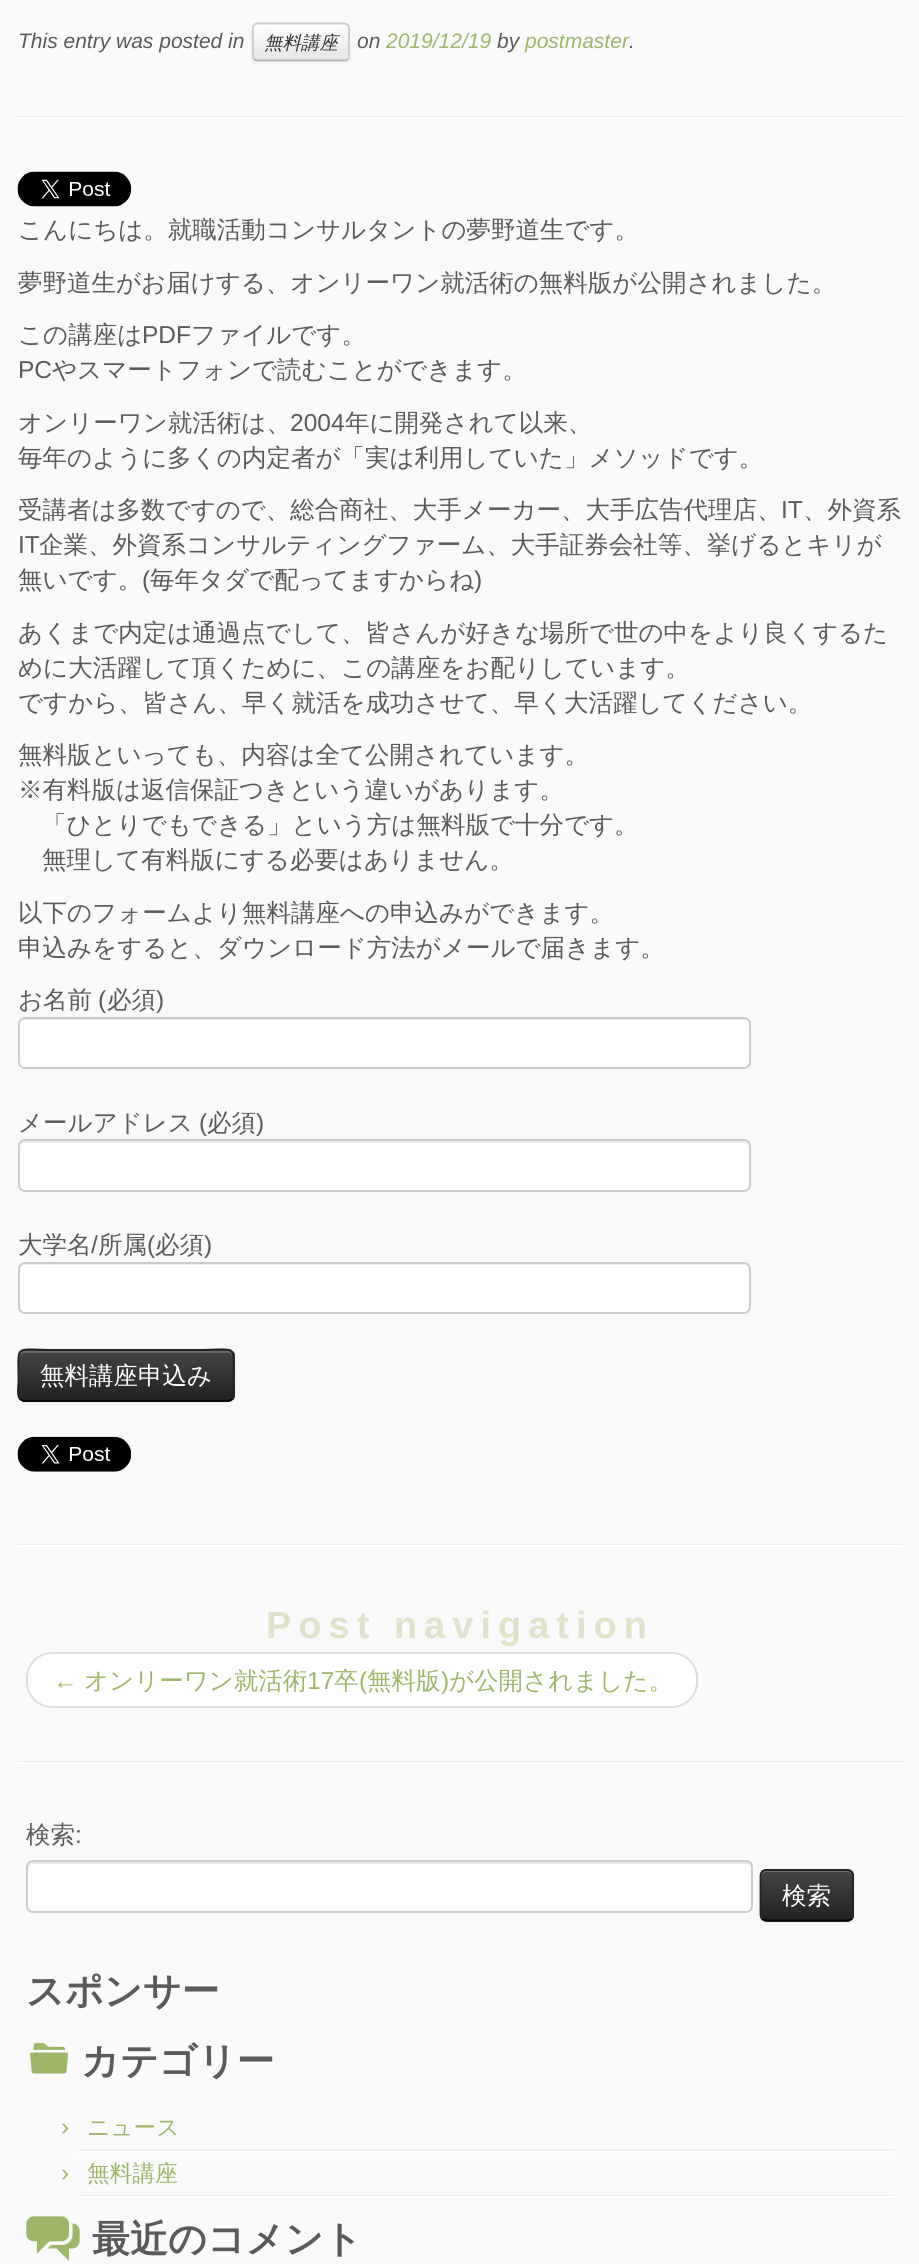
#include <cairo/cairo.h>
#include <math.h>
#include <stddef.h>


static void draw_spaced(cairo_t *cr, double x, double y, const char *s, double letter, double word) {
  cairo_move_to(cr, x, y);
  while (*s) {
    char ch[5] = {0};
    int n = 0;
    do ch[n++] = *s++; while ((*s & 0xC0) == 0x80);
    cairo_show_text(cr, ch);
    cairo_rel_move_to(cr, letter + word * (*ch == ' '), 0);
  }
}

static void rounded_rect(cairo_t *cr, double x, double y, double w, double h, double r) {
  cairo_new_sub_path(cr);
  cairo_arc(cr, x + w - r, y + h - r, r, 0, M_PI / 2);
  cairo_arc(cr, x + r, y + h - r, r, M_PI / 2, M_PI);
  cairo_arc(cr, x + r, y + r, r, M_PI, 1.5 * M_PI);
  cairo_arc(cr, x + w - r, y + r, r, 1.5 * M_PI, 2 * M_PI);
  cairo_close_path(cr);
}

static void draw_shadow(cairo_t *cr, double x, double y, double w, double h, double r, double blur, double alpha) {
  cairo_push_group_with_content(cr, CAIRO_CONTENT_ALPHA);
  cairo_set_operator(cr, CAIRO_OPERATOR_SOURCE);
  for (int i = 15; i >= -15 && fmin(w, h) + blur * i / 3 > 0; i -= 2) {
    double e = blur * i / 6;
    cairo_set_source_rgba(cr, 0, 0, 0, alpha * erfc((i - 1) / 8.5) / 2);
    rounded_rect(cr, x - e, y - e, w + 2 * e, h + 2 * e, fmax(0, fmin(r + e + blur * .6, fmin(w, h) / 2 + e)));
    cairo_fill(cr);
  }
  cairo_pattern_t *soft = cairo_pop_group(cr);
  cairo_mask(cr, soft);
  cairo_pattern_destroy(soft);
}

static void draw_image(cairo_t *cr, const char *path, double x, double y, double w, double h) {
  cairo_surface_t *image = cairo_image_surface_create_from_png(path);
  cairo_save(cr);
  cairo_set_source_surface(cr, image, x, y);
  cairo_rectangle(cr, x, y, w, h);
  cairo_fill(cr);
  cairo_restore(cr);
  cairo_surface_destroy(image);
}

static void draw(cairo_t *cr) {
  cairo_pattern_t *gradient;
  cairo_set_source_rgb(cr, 250 / 255.0, 250 / 255.0, 250 / 255.0);
  cairo_paint(cr);
  cairo_set_source_rgb(cr, 0, 0, 0);
  draw_shadow(cr, 252, 25, 98, 38, 5, 2, 0.05);
  cairo_set_source_rgb(cr, 245 / 255.0, 245 / 255.0, 245 / 255.0);
  rounded_rect(cr, 252, 23, 98, 38, 5);
  cairo_fill(cr);
  cairo_save(cr);
  rounded_rect(cr, 252, 23, 98, 38, 5);
  cairo_clip(cr);
  gradient = cairo_pattern_create_linear(301, 24, 301, 60);
  cairo_pattern_add_color_stop_rgba(gradient, 0, 1, 1, 1, 1);
  cairo_pattern_add_color_stop_rgba(gradient, 1, 230 / 255.0, 230 / 255.0, 230 / 255.0, 1);
  cairo_set_source(cr, gradient);
  cairo_pattern_destroy(gradient);
  cairo_rectangle(cr, 252, 25, 98, 35);
  cairo_fill(cr);
  cairo_restore(cr);
  cairo_new_path(cr);
  cairo_move_to(cr, 348, 59);
  cairo_curve_to(cr, 347, 60, 346, 60.5, 345, 60.5);
  cairo_line_to(cr, 257, 60.5);
  cairo_curve_to(cr, 256, 60.5, 255, 60, 254, 59);
  cairo_set_source_rgb(cr, 179 / 255.0, 179 / 255.0, 179 / 255.0);
  cairo_set_line_width(cr, 1.8);
  cairo_stroke(cr);
  cairo_new_path(cr);
  cairo_move_to(cr, 254, 59);
  cairo_curve_to(cr, 252, 57, 253, 53.5, 253, 51.5);
  cairo_line_to(cr, 253, 42);
  cairo_curve_to(cr, 253, 21, 250, 23.5, 272, 23.5);
  cairo_line_to(cr, 330, 23.5);
  cairo_curve_to(cr, 352, 23.5, 349, 21, 349, 42);
  cairo_line_to(cr, 349, 51.5);
  cairo_curve_to(cr, 349, 53.5, 350, 57, 348, 59);
  cairo_set_source_rgb(cr, 204 / 255.0, 204 / 255.0, 204 / 255.0);
  cairo_stroke(cr);
  cairo_set_source_rgb(cr, 238 / 255.0, 238 / 255.0, 238 / 255.0);
  cairo_rectangle(cr, 18, 116, 885, 1);
  cairo_fill(cr);
  cairo_set_source_rgb(cr, 1, 1, 1);
  cairo_rectangle(cr, 18, 117, 885, 2);
  cairo_fill(cr);
  draw_image(cr, "images/1.png", 17, 171, 115, 36);
  rounded_rect(cr, 18, 1017, 733, 52, 7);
  cairo_fill(cr);
  cairo_set_source_rgb(cr, 236 / 255.0, 236 / 255.0, 236 / 255.0);
  cairo_new_path(cr);
  cairo_move_to(cr, 24, 1020);
  cairo_line_to(cr, 744, 1020);
  cairo_curve_to(cr, 747, 1020, 749, 1023, 749, 1026);
  cairo_line_to(cr, 749, 1024);
  cairo_curve_to(cr, 749, 1021, 747, 1019, 744, 1019);
  cairo_line_to(cr, 24, 1019);
  cairo_curve_to(cr, 21, 1019, 19, 1021, 19, 1024);
  cairo_line_to(cr, 19, 1026);
  cairo_curve_to(cr, 19, 1023, 22, 1020, 24, 1020);
  cairo_close_path(cr);
  cairo_fill(cr);
  rounded_rect(cr, 19, 1018, 731, 50, 6);
  cairo_set_source_rgb(cr, 204 / 255.0, 204 / 255.0, 204 / 255.0);
  cairo_set_line_width(cr, 2);
  cairo_stroke(cr);
  cairo_set_source_rgb(cr, 1, 1, 1);
  rounded_rect(cr, 18, 1139, 733, 53, 7);
  cairo_fill(cr);
  cairo_set_source_rgb(cr, 236 / 255.0, 236 / 255.0, 236 / 255.0);
  cairo_new_path(cr);
  cairo_move_to(cr, 24, 1143);
  cairo_line_to(cr, 744, 1143);
  cairo_curve_to(cr, 747, 1143, 749, 1145, 749, 1148);
  cairo_line_to(cr, 749, 1146);
  cairo_curve_to(cr, 749, 1143, 747, 1141, 744, 1141);
  cairo_line_to(cr, 24, 1141);
  cairo_curve_to(cr, 21, 1141, 19, 1143, 19, 1146);
  cairo_line_to(cr, 19, 1148);
  cairo_curve_to(cr, 19, 1145, 22, 1143, 24, 1143);
  cairo_close_path(cr);
  cairo_fill(cr);
  rounded_rect(cr, 19, 1140, 731, 51, 6);
  cairo_set_source_rgb(cr, 204 / 255.0, 204 / 255.0, 204 / 255.0);
  cairo_stroke(cr);
  cairo_set_source_rgb(cr, 1, 1, 1);
  rounded_rect(cr, 18, 1262, 733, 52, 7);
  cairo_fill(cr);
  cairo_set_source_rgb(cr, 236 / 255.0, 236 / 255.0, 236 / 255.0);
  cairo_new_path(cr);
  cairo_move_to(cr, 24, 1265);
  cairo_line_to(cr, 744, 1265);
  cairo_curve_to(cr, 747, 1265, 749, 1268, 749, 1270);
  cairo_curve_to(cr, 749, 1267, 747, 1264, 744, 1264);
  cairo_line_to(cr, 24, 1264);
  cairo_curve_to(cr, 21, 1264, 19, 1267, 19, 1270);
  cairo_curve_to(cr, 19, 1268, 22, 1265, 24, 1265);
  cairo_close_path(cr);
  cairo_fill(cr);
  rounded_rect(cr, 19, 1263, 731, 50, 6);
  cairo_set_source_rgb(cr, 204 / 255.0, 204 / 255.0, 204 / 255.0);
  cairo_stroke(cr);
  cairo_set_source_rgb(cr, 0, 0, 0);
  draw_shadow(cr, 18, 1351, 217, 53, 7, 2, 0.05);
  cairo_set_source_rgb(cr, 54 / 255.0, 54 / 255.0, 54 / 255.0);
  rounded_rect(cr, 18, 1349, 217, 53, 7);
  cairo_fill(cr);
  cairo_save(cr);
  rounded_rect(cr, 18, 1349, 217, 53, 7);
  cairo_clip(cr);
  gradient = cairo_pattern_create_linear(126, 1351, 126, 1400);
  cairo_pattern_add_color_stop_rgba(gradient, 0, 68 / 255.0, 68 / 255.0, 68 / 255.0, 1);
  cairo_pattern_add_color_stop_rgba(gradient, 1, 34 / 255.0, 34 / 255.0, 34 / 255.0, 1);
  cairo_set_source(cr, gradient);
  cairo_pattern_destroy(gradient);
  cairo_rectangle(cr, 18, 1351, 217, 49);
  cairo_fill(cr);
  cairo_restore(cr);
  cairo_set_source_rgba(cr, 1, 1, 1, 0.2);
  cairo_new_path(cr);
  cairo_move_to(cr, 24, 1353);
  cairo_line_to(cr, 228, 1353);
  cairo_curve_to(cr, 230, 1353, 233, 1355, 233, 1358);
  cairo_line_to(cr, 233, 1356);
  cairo_curve_to(cr, 233, 1353, 231, 1351, 228, 1351);
  cairo_line_to(cr, 24, 1351);
  cairo_curve_to(cr, 21, 1351, 19, 1353, 19, 1356);
  cairo_line_to(cr, 19, 1358);
  cairo_curve_to(cr, 19, 1355, 22, 1353, 24, 1353);
  cairo_close_path(cr);
  cairo_fill(cr);
  cairo_new_path(cr);
  cairo_move_to(cr, 232, 1399);
  cairo_curve_to(cr, 230.5, 1400, 229, 1401, 227.5, 1401);
  cairo_line_to(cr, 24.5, 1401);
  cairo_curve_to(cr, 23, 1401, 21.5, 1400, 20, 1399);
  cairo_set_source_rgb(cr, 0, 0, 0);
  cairo_set_line_width(cr, 1.8);
  cairo_stroke(cr);
  cairo_new_path(cr);
  cairo_move_to(cr, 20, 1399);
  cairo_curve_to(cr, 16.5, 1395.5, 18.5, 1386, 18.5, 1382);
  cairo_curve_to(cr, 18.5, 1342, 12.5, 1350, 58.5, 1350);
  cairo_line_to(cr, 193.5, 1350);
  cairo_curve_to(cr, 239.5, 1350, 233.5, 1342, 233.5, 1382);
  cairo_curve_to(cr, 233.5, 1386, 235.5, 1395.5, 232, 1399);
  cairo_set_source_rgb(cr, 34 / 255.0, 34 / 255.0, 34 / 255.0);
  cairo_stroke(cr);
  draw_image(cr, "images/2.png", 17, 1436, 115, 36);
  cairo_set_source_rgb(cr, 238 / 255.0, 238 / 255.0, 238 / 255.0);
  cairo_rectangle(cr, 18, 1544, 885, 1);
  cairo_fill(cr);
  cairo_set_source_rgb(cr, 1, 1, 1);
  cairo_rectangle(cr, 18, 1545, 885, 2);
  cairo_fill(cr);
  rounded_rect(cr, 27, 1653, 670, 54, 25);
  cairo_fill_preserve(cr);
  cairo_set_source_rgb(cr, 221 / 255.0, 221 / 255.0, 221 / 255.0);
  cairo_set_line_width(cr, 2);
  cairo_stroke(cr);
  cairo_set_source_rgb(cr, 238 / 255.0, 238 / 255.0, 238 / 255.0);
  cairo_rectangle(cr, 18, 1761, 885, 1);
  cairo_fill(cr);
  cairo_set_source_rgb(cr, 1, 1, 1);
  cairo_rectangle(cr, 18, 1762, 885, 2);
  cairo_fill(cr);
  rounded_rect(cr, 26, 1860, 727, 53, 7);
  cairo_fill(cr);
  cairo_set_source_rgb(cr, 236 / 255.0, 236 / 255.0, 236 / 255.0);
  cairo_new_path(cr);
  cairo_move_to(cr, 33, 1864);
  cairo_line_to(cr, 746, 1864);
  cairo_curve_to(cr, 748, 1864, 751, 1866, 751, 1869);
  cairo_line_to(cr, 751, 1867);
  cairo_curve_to(cr, 751, 1864, 749, 1862, 746, 1862);
  cairo_line_to(cr, 33, 1862);
  cairo_curve_to(cr, 30, 1862, 28, 1864, 28, 1867);
  cairo_line_to(cr, 28, 1869);
  cairo_curve_to(cr, 28, 1866, 30, 1864, 33, 1864);
  cairo_close_path(cr);
  cairo_fill(cr);
  rounded_rect(cr, 27, 1861, 725, 51, 6);
  cairo_set_source_rgb(cr, 204 / 255.0, 204 / 255.0, 204 / 255.0);
  cairo_stroke(cr);
  cairo_set_source_rgb(cr, 0, 0, 0);
  draw_shadow(cr, 760, 1871, 94, 52, 7, 2, 0.05);
  cairo_set_source_rgb(cr, 54 / 255.0, 54 / 255.0, 54 / 255.0);
  rounded_rect(cr, 760, 1869, 94, 53, 7);
  cairo_fill(cr);
  cairo_save(cr);
  rounded_rect(cr, 760, 1869, 94, 53, 7);
  cairo_clip(cr);
  gradient = cairo_pattern_create_linear(807, 1871, 807, 1920);
  cairo_pattern_add_color_stop_rgba(gradient, 0, 68 / 255.0, 68 / 255.0, 68 / 255.0, 1);
  cairo_pattern_add_color_stop_rgba(gradient, 1, 34 / 255.0, 34 / 255.0, 34 / 255.0, 1);
  cairo_set_source(cr, gradient);
  cairo_pattern_destroy(gradient);
  cairo_rectangle(cr, 760, 1871, 94, 49);
  cairo_fill(cr);
  cairo_restore(cr);
  cairo_set_source_rgba(cr, 1, 1, 1, 0.2);
  cairo_new_path(cr);
  cairo_move_to(cr, 766, 1872);
  cairo_line_to(cr, 847, 1872);
  cairo_curve_to(cr, 850, 1872, 852, 1875, 852, 1878);
  cairo_curve_to(cr, 852, 1867, 842, 1871, 834, 1871);
  cairo_line_to(cr, 780, 1871);
  cairo_curve_to(cr, 771, 1871, 761, 1867, 761, 1878);
  cairo_curve_to(cr, 761, 1875, 764, 1872, 766, 1872);
  cairo_close_path(cr);
  cairo_fill(cr);
  cairo_new_path(cr);
  cairo_move_to(cr, 851.5, 1919);
  cairo_curve_to(cr, 850, 1920, 848.5, 1920.5, 847, 1920.5);
  cairo_line_to(cr, 766.5, 1920.5);
  cairo_curve_to(cr, 765, 1920.5, 763.5, 1920, 762, 1919);
  cairo_set_source_rgb(cr, 0, 0, 0);
  cairo_set_line_width(cr, 1.8);
  cairo_stroke(cr);
  cairo_new_path(cr);
  cairo_move_to(cr, 762, 1919);
  cairo_curve_to(cr, 761, 1917.5, 760.5, 1916, 760.5, 1914.5);
  cairo_line_to(cr, 760.5, 1876);
  cairo_curve_to(cr, 760.5, 1874.5, 761, 1873, 762, 1871.5);
  cairo_curve_to(cr, 763.5, 1870.5, 765, 1870, 766.5, 1870);
  cairo_line_to(cr, 847, 1870);
  cairo_curve_to(cr, 848.5, 1870, 850, 1870.5, 851.5, 1871.5);
  cairo_curve_to(cr, 852.5, 1873, 853, 1874.5, 853, 1876);
  cairo_line_to(cr, 853, 1914.5);
  cairo_curve_to(cr, 853, 1916, 852.5, 1917.5, 851.5, 1919);
  cairo_set_source_rgb(cr, 34 / 255.0, 34 / 255.0, 34 / 255.0);
  cairo_stroke(cr);
  draw_image(cr, "images/3.png", 30, 2043, 39, 31);
  cairo_set_source_rgb(cr, 238 / 255.0, 238 / 255.0, 238 / 255.0);
  cairo_rectangle(cr, 79, 2149, 815, 2);
  cairo_fill(cr);
  cairo_set_source_rgb(cr, 1, 1, 1);
  cairo_rectangle(cr, 79, 2151, 815, 2);
  cairo_fill(cr);
  cairo_set_source_rgb(cr, 238 / 255.0, 238 / 255.0, 238 / 255.0);
  cairo_rectangle(cr, 79, 2195, 815, 1);
  cairo_fill(cr);
  cairo_set_source_rgb(cr, 1, 1, 1);
  cairo_rectangle(cr, 79, 2196, 815, 2);
  cairo_fill(cr);
  draw_image(cr, "images/4.png", 26, 2216, 54, 45);
  cairo_select_font_face(cr, "Liberation Sans", CAIRO_FONT_SLANT_ITALIC, CAIRO_FONT_WEIGHT_NORMAL);
  cairo_set_font_size(cr, 21);
  cairo_set_source_rgb(cr, 90 / 255.0, 90 / 255.0, 90 / 255.0);
  cairo_move_to(cr, 18, 48);
  cairo_show_text(cr, "This entry was posted in");
  cairo_select_font_face(cr, "WenQuanYi Zen Hei Medium", CAIRO_FONT_SLANT_ITALIC, CAIRO_FONT_WEIGHT_NORMAL);
  cairo_set_font_size(cr, 18.5);
  cairo_set_source_rgb(cr, 51 / 255.0, 51 / 255.0, 51 / 255.0);
  cairo_move_to(cr, 264, 49);
  cairo_show_text(cr, "無料講座");
  cairo_select_font_face(cr, "Liberation Sans", CAIRO_FONT_SLANT_ITALIC, CAIRO_FONT_WEIGHT_NORMAL);
  cairo_set_font_size(cr, 21);
  cairo_set_source_rgb(cr, 90 / 255.0, 90 / 255.0, 90 / 255.0);
  cairo_move_to(cr, 357, 48);
  cairo_show_text(cr, "on");
  cairo_set_source_rgb(cr, 157 / 255.0, 182 / 255.0, 104 / 255.0);
  cairo_move_to(cr, 386, 48);
  cairo_show_text(cr, "2019/12/19");
  cairo_set_source_rgb(cr, 90 / 255.0, 90 / 255.0, 90 / 255.0);
  cairo_move_to(cr, 497, 48);
  cairo_show_text(cr, "by");
  cairo_set_source_rgb(cr, 157 / 255.0, 182 / 255.0, 104 / 255.0);
  cairo_move_to(cr, 525, 48);
  cairo_show_text(cr, "postmaster");
  cairo_set_source_rgb(cr, 90 / 255.0, 90 / 255.0, 90 / 255.0);
  cairo_move_to(cr, 629, 48);
  cairo_show_text(cr, ".");
  cairo_select_font_face(cr, "WenQuanYi Zen Hei Medium", CAIRO_FONT_SLANT_NORMAL, CAIRO_FONT_WEIGHT_NORMAL);
  cairo_set_font_size(cr, 24.5);
  cairo_move_to(cr, 18, 238);
  cairo_show_text(cr, "こんにちは。就職活動コンサルタントの夢野道生です。");
  cairo_move_to(cr, 18, 291);
  cairo_show_text(cr, "夢野道生がお届けする、オンリーワン就活術の無料版が公開されました。");
  cairo_move_to(cr, 18, 343);
  cairo_show_text(cr, "この講座は");
  cairo_select_font_face(cr, "Liberation Sans", CAIRO_FONT_SLANT_NORMAL, CAIRO_FONT_WEIGHT_NORMAL);
  cairo_move_to(cr, 142, 343);
  cairo_show_text(cr, "PDF");
  cairo_select_font_face(cr, "WenQuanYi Zen Hei Medium", CAIRO_FONT_SLANT_NORMAL, CAIRO_FONT_WEIGHT_NORMAL);
  cairo_move_to(cr, 191, 343);
  cairo_show_text(cr, "ファイルです。");
  cairo_select_font_face(cr, "Liberation Sans", CAIRO_FONT_SLANT_NORMAL, CAIRO_FONT_WEIGHT_NORMAL);
  cairo_move_to(cr, 18, 378);
  cairo_show_text(cr, "PC");
  cairo_select_font_face(cr, "WenQuanYi Zen Hei Medium", CAIRO_FONT_SLANT_NORMAL, CAIRO_FONT_WEIGHT_NORMAL);
  cairo_move_to(cr, 52, 378);
  cairo_show_text(cr, "やスマートフォンで読むことができます。");
  cairo_move_to(cr, 18, 431);
  cairo_show_text(cr, "オンリーワン就活術は、");
  cairo_select_font_face(cr, "Liberation Sans", CAIRO_FONT_SLANT_NORMAL, CAIRO_FONT_WEIGHT_NORMAL);
  cairo_move_to(cr, 290, 431);
  cairo_show_text(cr, "2004");
  cairo_select_font_face(cr, "WenQuanYi Zen Hei Medium", CAIRO_FONT_SLANT_NORMAL, CAIRO_FONT_WEIGHT_NORMAL);
  cairo_move_to(cr, 345, 431);
  cairo_show_text(cr, "年に開発されて以来、");
  cairo_move_to(cr, 18, 466);
  cairo_show_text(cr, "毎年のように多くの内定者が「実は利用していた」メソッドです。");
  cairo_move_to(cr, 18, 518);
  cairo_show_text(cr, "受講者は多数ですので、総合商社、大手メーカー、大手広告代理店、");
  cairo_select_font_face(cr, "Liberation Sans", CAIRO_FONT_SLANT_NORMAL, CAIRO_FONT_WEIGHT_NORMAL);
  cairo_move_to(cr, 781, 518);
  cairo_show_text(cr, "IT");
  cairo_select_font_face(cr, "WenQuanYi Zen Hei Medium", CAIRO_FONT_SLANT_NORMAL, CAIRO_FONT_WEIGHT_NORMAL);
  cairo_move_to(cr, 803, 518);
  cairo_show_text(cr, "、外資系");
  cairo_select_font_face(cr, "Liberation Sans", CAIRO_FONT_SLANT_NORMAL, CAIRO_FONT_WEIGHT_NORMAL);
  cairo_move_to(cr, 18, 553);
  cairo_show_text(cr, "IT");
  cairo_select_font_face(cr, "WenQuanYi Zen Hei Medium", CAIRO_FONT_SLANT_NORMAL, CAIRO_FONT_WEIGHT_NORMAL);
  cairo_move_to(cr, 39, 553);
  cairo_show_text(cr, "企業、外資系コンサルティングファーム、大手証券会社等、挙げるとキリが");
  cairo_move_to(cr, 18, 588);
  cairo_show_text(cr, "無いです。");
  cairo_select_font_face(cr, "Liberation Sans", CAIRO_FONT_SLANT_NORMAL, CAIRO_FONT_WEIGHT_NORMAL);
  cairo_move_to(cr, 142, 588);
  cairo_show_text(cr, "(");
  cairo_select_font_face(cr, "WenQuanYi Zen Hei Medium", CAIRO_FONT_SLANT_NORMAL, CAIRO_FONT_WEIGHT_NORMAL);
  cairo_move_to(cr, 150, 588);
  cairo_show_text(cr, "毎年タダで配ってますからね");
  cairo_select_font_face(cr, "Liberation Sans", CAIRO_FONT_SLANT_NORMAL, CAIRO_FONT_WEIGHT_NORMAL);
  cairo_move_to(cr, 474, 588);
  cairo_show_text(cr, ")");
  cairo_select_font_face(cr, "WenQuanYi Zen Hei Medium", CAIRO_FONT_SLANT_NORMAL, CAIRO_FONT_WEIGHT_NORMAL);
  cairo_move_to(cr, 18, 641);
  cairo_show_text(cr, "あくまで内定は通過点でして、皆さんが好きな場所で世の中をより良くするた");
  cairo_move_to(cr, 18, 676);
  cairo_show_text(cr, "めに大活躍して頂くために、この講座をお配りしています。");
  cairo_move_to(cr, 18, 711);
  cairo_show_text(cr, "ですから、皆さん、早く就活を成功させて、早く大活躍してください。");
  cairo_move_to(cr, 18, 763);
  cairo_show_text(cr, "無料版といっても、内容は全て公開されています。");
  cairo_move_to(cr, 18, 798);
  cairo_show_text(cr, "※有料版は返信保証つきという違いがあります。");
  cairo_move_to(cr, 42, 833);
  cairo_show_text(cr, "「ひとりでもできる」という方は無料版で十分です。");
  cairo_move_to(cr, 42, 868);
  cairo_show_text(cr, "無理して有料版にする必要はありません。");
  cairo_move_to(cr, 18, 921);
  cairo_show_text(cr, "以下のフォームより無料講座への申込みができます。");
  cairo_move_to(cr, 18, 956);
  cairo_show_text(cr, "申込みをすると、ダウンロード方法がメールで届きます。");
  cairo_move_to(cr, 18, 1008);
  cairo_show_text(cr, "お名前");
  cairo_select_font_face(cr, "Liberation Sans", CAIRO_FONT_SLANT_NORMAL, CAIRO_FONT_WEIGHT_NORMAL);
  cairo_move_to(cr, 98, 1008);
  cairo_show_text(cr, "(");
  cairo_select_font_face(cr, "WenQuanYi Zen Hei Medium", CAIRO_FONT_SLANT_NORMAL, CAIRO_FONT_WEIGHT_NORMAL);
  cairo_move_to(cr, 107, 1008);
  cairo_show_text(cr, "必須");
  cairo_select_font_face(cr, "Liberation Sans", CAIRO_FONT_SLANT_NORMAL, CAIRO_FONT_WEIGHT_NORMAL);
  cairo_move_to(cr, 156, 1008);
  cairo_show_text(cr, ")");
  cairo_select_font_face(cr, "WenQuanYi Zen Hei Medium", CAIRO_FONT_SLANT_NORMAL, CAIRO_FONT_WEIGHT_NORMAL);
  cairo_move_to(cr, 18, 1131);
  cairo_show_text(cr, "メールアドレス");
  cairo_select_font_face(cr, "Liberation Sans", CAIRO_FONT_SLANT_NORMAL, CAIRO_FONT_WEIGHT_NORMAL);
  cairo_move_to(cr, 199, 1131);
  cairo_show_text(cr, "(");
  cairo_select_font_face(cr, "WenQuanYi Zen Hei Medium", CAIRO_FONT_SLANT_NORMAL, CAIRO_FONT_WEIGHT_NORMAL);
  cairo_move_to(cr, 207, 1131);
  cairo_show_text(cr, "必須");
  cairo_select_font_face(cr, "Liberation Sans", CAIRO_FONT_SLANT_NORMAL, CAIRO_FONT_WEIGHT_NORMAL);
  cairo_move_to(cr, 256, 1131);
  cairo_show_text(cr, ")");
  cairo_select_font_face(cr, "WenQuanYi Zen Hei Medium", CAIRO_FONT_SLANT_NORMAL, CAIRO_FONT_WEIGHT_NORMAL);
  cairo_move_to(cr, 18, 1253);
  cairo_show_text(cr, "大学名");
  cairo_select_font_face(cr, "Liberation Sans", CAIRO_FONT_SLANT_NORMAL, CAIRO_FONT_WEIGHT_NORMAL);
  cairo_move_to(cr, 91, 1253);
  cairo_show_text(cr, "/");
  cairo_select_font_face(cr, "WenQuanYi Zen Hei Medium", CAIRO_FONT_SLANT_NORMAL, CAIRO_FONT_WEIGHT_NORMAL);
  cairo_move_to(cr, 98, 1253);
  cairo_show_text(cr, "所属");
  cairo_select_font_face(cr, "Liberation Sans", CAIRO_FONT_SLANT_NORMAL, CAIRO_FONT_WEIGHT_NORMAL);
  cairo_move_to(cr, 147, 1253);
  cairo_show_text(cr, "(");
  cairo_select_font_face(cr, "WenQuanYi Zen Hei Medium", CAIRO_FONT_SLANT_NORMAL, CAIRO_FONT_WEIGHT_NORMAL);
  cairo_move_to(cr, 155, 1253);
  cairo_show_text(cr, "必須");
  cairo_select_font_face(cr, "Liberation Sans", CAIRO_FONT_SLANT_NORMAL, CAIRO_FONT_WEIGHT_NORMAL);
  cairo_move_to(cr, 204, 1253);
  cairo_show_text(cr, ")");
  cairo_select_font_face(cr, "WenQuanYi Zen Hei Medium", CAIRO_FONT_SLANT_NORMAL, CAIRO_FONT_WEIGHT_NORMAL);
  cairo_set_source_rgb(cr, 1, 1, 1);
  cairo_move_to(cr, 40, 1384);
  cairo_show_text(cr, "無料講座申込み");
  cairo_select_font_face(cr, "Liberation Sans", CAIRO_FONT_SLANT_NORMAL, CAIRO_FONT_WEIGHT_BOLD);
  cairo_set_font_size(cr, 38);
  cairo_set_source_rgb(cr, 220 / 255.0, 229 / 255.0, 203 / 255.0);
  draw_spaced(cr, 266, 1638, "Post navigation", 7, 0);
  cairo_select_font_face(cr, "Liberation Sans", CAIRO_FONT_SLANT_NORMAL, CAIRO_FONT_WEIGHT_NORMAL);
  cairo_set_font_size(cr, 24.5);
  cairo_set_source_rgb(cr, 157 / 255.0, 182 / 255.0, 104 / 255.0);
  cairo_move_to(cr, 53, 1689);
  cairo_show_text(cr, "←");
  cairo_select_font_face(cr, "WenQuanYi Zen Hei Medium", CAIRO_FONT_SLANT_NORMAL, CAIRO_FONT_WEIGHT_NORMAL);
  cairo_move_to(cr, 84, 1689);
  cairo_show_text(cr, "オンリーワン就活術");
  cairo_select_font_face(cr, "Liberation Sans", CAIRO_FONT_SLANT_NORMAL, CAIRO_FONT_WEIGHT_NORMAL);
  cairo_move_to(cr, 307, 1689);
  cairo_show_text(cr, "17");
  cairo_select_font_face(cr, "WenQuanYi Zen Hei Medium", CAIRO_FONT_SLANT_NORMAL, CAIRO_FONT_WEIGHT_NORMAL);
  cairo_move_to(cr, 334, 1689);
  cairo_show_text(cr, "卒");
  cairo_select_font_face(cr, "Liberation Sans", CAIRO_FONT_SLANT_NORMAL, CAIRO_FONT_WEIGHT_NORMAL);
  cairo_move_to(cr, 359, 1689);
  cairo_show_text(cr, "(");
  cairo_select_font_face(cr, "WenQuanYi Zen Hei Medium", CAIRO_FONT_SLANT_NORMAL, CAIRO_FONT_WEIGHT_NORMAL);
  cairo_move_to(cr, 367, 1689);
  cairo_show_text(cr, "無料版");
  cairo_select_font_face(cr, "Liberation Sans", CAIRO_FONT_SLANT_NORMAL, CAIRO_FONT_WEIGHT_NORMAL);
  cairo_move_to(cr, 441, 1689);
  cairo_show_text(cr, ")");
  cairo_select_font_face(cr, "WenQuanYi Zen Hei Medium", CAIRO_FONT_SLANT_NORMAL, CAIRO_FONT_WEIGHT_NORMAL);
  cairo_move_to(cr, 449, 1689);
  cairo_show_text(cr, "が公開されました。");
  cairo_set_source_rgb(cr, 90 / 255.0, 90 / 255.0, 90 / 255.0);
  cairo_move_to(cr, 26, 1843);
  cairo_show_text(cr, "検索");
  cairo_select_font_face(cr, "Liberation Sans", CAIRO_FONT_SLANT_NORMAL, CAIRO_FONT_WEIGHT_NORMAL);
  cairo_move_to(cr, 75, 1843);
  cairo_show_text(cr, ":");
  cairo_select_font_face(cr, "WenQuanYi Zen Hei Medium", CAIRO_FONT_SLANT_NORMAL, CAIRO_FONT_WEIGHT_NORMAL);
  cairo_set_source_rgb(cr, 1, 1, 1);
  cairo_move_to(cr, 782, 1904);
  cairo_show_text(cr, "検索");
  cairo_select_font_face(cr, "WenQuanYi Zen Hei", CAIRO_FONT_SLANT_NORMAL, CAIRO_FONT_WEIGHT_BOLD);
  cairo_set_font_size(cr, 38);
  cairo_set_source_rgb(cr, 90 / 255.0, 90 / 255.0, 90 / 255.0);
  cairo_move_to(cr, 26, 2004);
  cairo_show_text(cr, "スポンサー");
  cairo_move_to(cr, 81, 2074);
  cairo_show_text(cr, "カテゴリー");
  cairo_select_font_face(cr, "Liberation Sans", CAIRO_FONT_SLANT_NORMAL, CAIRO_FONT_WEIGHT_NORMAL);
  cairo_set_font_size(cr, 24.5);
  cairo_set_source_rgb(cr, 157 / 255.0, 182 / 255.0, 104 / 255.0);
  cairo_move_to(cr, 61, 2135);
  cairo_show_text(cr, "›");
  cairo_select_font_face(cr, "WenQuanYi Zen Hei Medium", CAIRO_FONT_SLANT_NORMAL, CAIRO_FONT_WEIGHT_NORMAL);
  cairo_set_font_size(cr, 22.75);
  cairo_move_to(cr, 87, 2135);
  cairo_show_text(cr, "ニュース");
  cairo_select_font_face(cr, "Liberation Sans", CAIRO_FONT_SLANT_NORMAL, CAIRO_FONT_WEIGHT_NORMAL);
  cairo_set_font_size(cr, 24.5);
  cairo_move_to(cr, 61, 2181);
  cairo_show_text(cr, "›");
  cairo_select_font_face(cr, "WenQuanYi Zen Hei Medium", CAIRO_FONT_SLANT_NORMAL, CAIRO_FONT_WEIGHT_NORMAL);
  cairo_set_font_size(cr, 22.75);
  cairo_move_to(cr, 87, 2181);
  cairo_show_text(cr, "無料講座");
  cairo_select_font_face(cr, "WenQuanYi Zen Hei", CAIRO_FONT_SLANT_NORMAL, CAIRO_FONT_WEIGHT_BOLD);
  cairo_set_font_size(cr, 38);
  cairo_set_source_rgb(cr, 90 / 255.0, 90 / 255.0, 90 / 255.0);
  cairo_move_to(cr, 92, 2252);
  cairo_show_text(cr, "最近のコメント");
}

int main(void) {
  cairo_surface_t *surface = cairo_image_surface_create(CAIRO_FORMAT_RGB24, 919, 2264);
  cairo_t *cr = cairo_create(surface);
  cairo_font_options_t *options = cairo_font_options_create();
  cairo_font_options_set_hint_metrics(options, CAIRO_HINT_METRICS_OFF);
  cairo_font_options_set_hint_style(options, CAIRO_HINT_STYLE_NONE);
  cairo_set_font_options(cr, options);
  cairo_set_miter_limit(cr, 4);
  draw(cr);
  cairo_surface_write_to_png(surface, "out.png");
  cairo_font_options_destroy(options);
  cairo_destroy(cr);
  cairo_surface_destroy(surface);
  return 0;
}
